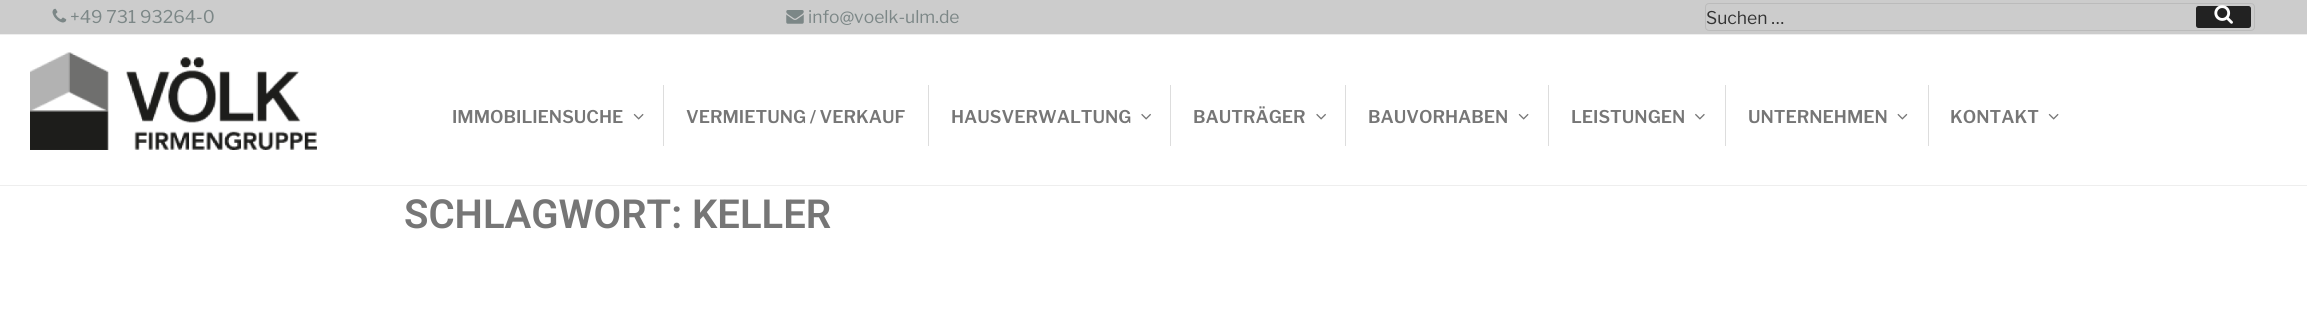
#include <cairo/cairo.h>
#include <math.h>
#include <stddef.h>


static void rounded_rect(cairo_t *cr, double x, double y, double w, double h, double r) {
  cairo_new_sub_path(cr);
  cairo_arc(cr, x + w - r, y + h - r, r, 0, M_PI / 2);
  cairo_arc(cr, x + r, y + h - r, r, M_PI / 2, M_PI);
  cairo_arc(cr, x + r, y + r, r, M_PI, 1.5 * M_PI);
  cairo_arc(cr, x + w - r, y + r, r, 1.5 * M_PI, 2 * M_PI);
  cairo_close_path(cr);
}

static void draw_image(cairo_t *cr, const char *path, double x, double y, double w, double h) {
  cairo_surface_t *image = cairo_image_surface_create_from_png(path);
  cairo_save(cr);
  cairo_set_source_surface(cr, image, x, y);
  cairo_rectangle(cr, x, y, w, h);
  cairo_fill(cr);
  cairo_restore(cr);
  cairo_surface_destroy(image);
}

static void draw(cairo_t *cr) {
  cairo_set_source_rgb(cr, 1, 1, 1);
  cairo_paint(cr);
  cairo_set_source_rgb(cr, 204 / 255.0, 204 / 255.0, 204 / 255.0);
  cairo_rectangle(cr, 0, 0, 2307, 34);
  cairo_fill(cr);
  draw_image(cr, "images/1.png", 52, 8, 15, 15);
  draw_image(cr, "images/2.png", 786, 10, 18, 14);
  rounded_rect(cr, 1705.5, 3.5, 549, 27, 3.5);
  cairo_set_source_rgb(cr, 187 / 255.0, 187 / 255.0, 187 / 255.0);
  cairo_set_line_width(cr, 1);
  cairo_stroke(cr);
  cairo_set_source_rgb(cr, 34 / 255.0, 34 / 255.0, 34 / 255.0);
  rounded_rect(cr, 2196, 6, 55, 22, 2.5);
  cairo_fill(cr);
  draw_image(cr, "images/3.png", 2214, 5, 19, 19);
  cairo_set_source_rgb(cr, 238 / 255.0, 238 / 255.0, 238 / 255.0);
  cairo_rectangle(cr, 0, 34, 2307, 1);
  cairo_fill(cr);
  cairo_rectangle(cr, 0, 185, 2307, 1);
  cairo_fill(cr);
  draw_image(cr, "images/4.png", 30, 52, 287, 98);
  draw_image(cr, "images/5.png", 633, 113, 11, 7);
  cairo_set_source_rgb(cr, 221 / 255.0, 221 / 255.0, 221 / 255.0);
  cairo_rectangle(cr, 663, 85, 1, 61);
  cairo_fill(cr);
  cairo_rectangle(cr, 928, 85, 1, 61);
  cairo_fill(cr);
  draw_image(cr, "images/6.png", 1141, 113, 10, 7);
  cairo_rectangle(cr, 1170, 85, 1, 61);
  cairo_fill(cr);
  draw_image(cr, "images/6.png", 1316, 113, 10, 7);
  cairo_rectangle(cr, 1345, 85, 1, 61);
  cairo_fill(cr);
  draw_image(cr, "images/5.png", 1518, 113, 11, 7);
  cairo_rectangle(cr, 1548, 85, 1, 61);
  cairo_fill(cr);
  draw_image(cr, "images/7.png", 1695, 113, 10, 7);
  cairo_rectangle(cr, 1725, 85, 1, 61);
  cairo_fill(cr);
  draw_image(cr, "images/8.png", 1897, 113, 11, 7);
  cairo_rectangle(cr, 1928, 85, 1, 61);
  cairo_fill(cr);
  draw_image(cr, "images/5.png", 2048, 113, 11, 7);
  cairo_select_font_face(cr, "Libre Franklin Thin", CAIRO_FONT_SLANT_NORMAL, CAIRO_FONT_WEIGHT_NORMAL);
  cairo_set_font_size(cr, 17.5);
  cairo_set_source_rgb(cr, 124 / 255.0, 135 / 255.0, 135 / 255.0);
  cairo_move_to(cr, 70, 23);
  cairo_show_text(cr, "+49 731 93264-0");
  cairo_move_to(cr, 808, 23);
  cairo_show_text(cr, "info@voelk-ulm.de");
  cairo_set_source_rgb(cr, 51 / 255.0, 51 / 255.0, 51 / 255.0);
  cairo_move_to(cr, 1706, 24);
  cairo_show_text(cr, "Suchen …");
  cairo_select_font_face(cr, "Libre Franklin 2 Thin", CAIRO_FONT_SLANT_NORMAL, CAIRO_FONT_WEIGHT_NORMAL);
  cairo_set_source_rgb(cr, 118 / 255.0, 118 / 255.0, 118 / 255.0);
  cairo_move_to(cr, 452, 123);
  cairo_show_text(cr, "IMMOBILIENSUCHE");
  cairo_move_to(cr, 686, 123);
  cairo_show_text(cr, "VERMIETUNG / VERKAUF");
  cairo_move_to(cr, 951, 123);
  cairo_show_text(cr, "HAUSVERWALTUNG");
  cairo_move_to(cr, 1193, 123);
  cairo_show_text(cr, "BAUTRÄGER");
  cairo_move_to(cr, 1368, 123);
  cairo_show_text(cr, "BAUVORHABEN");
  cairo_move_to(cr, 1571, 123);
  cairo_show_text(cr, "LEISTUNGEN");
  cairo_move_to(cr, 1748, 123);
  cairo_show_text(cr, "UNTERNEHMEN");
  cairo_move_to(cr, 1950, 123);
  cairo_show_text(cr, "KONTAKT");
  cairo_select_font_face(cr, "Roboto SemiBold", CAIRO_FONT_SLANT_NORMAL, CAIRO_FONT_WEIGHT_NORMAL);
  cairo_set_font_size(cr, 40);
  cairo_move_to(cr, 404, 228);
  cairo_show_text(cr, "SCHLAGWORT: KELLER");
}

int main(void) {
  cairo_surface_t *surface = cairo_image_surface_create(CAIRO_FORMAT_RGB24, 2307, 332);
  cairo_t *cr = cairo_create(surface);
  cairo_font_options_t *options = cairo_font_options_create();
  cairo_font_options_set_hint_metrics(options, CAIRO_HINT_METRICS_OFF);
  cairo_font_options_set_hint_style(options, CAIRO_HINT_STYLE_NONE);
  cairo_set_font_options(cr, options);
  cairo_set_miter_limit(cr, 4);
  draw(cr);
  cairo_surface_write_to_png(surface, "out.png");
  cairo_font_options_destroy(options);
  cairo_destroy(cr);
  cairo_surface_destroy(surface);
  return 0;
}
